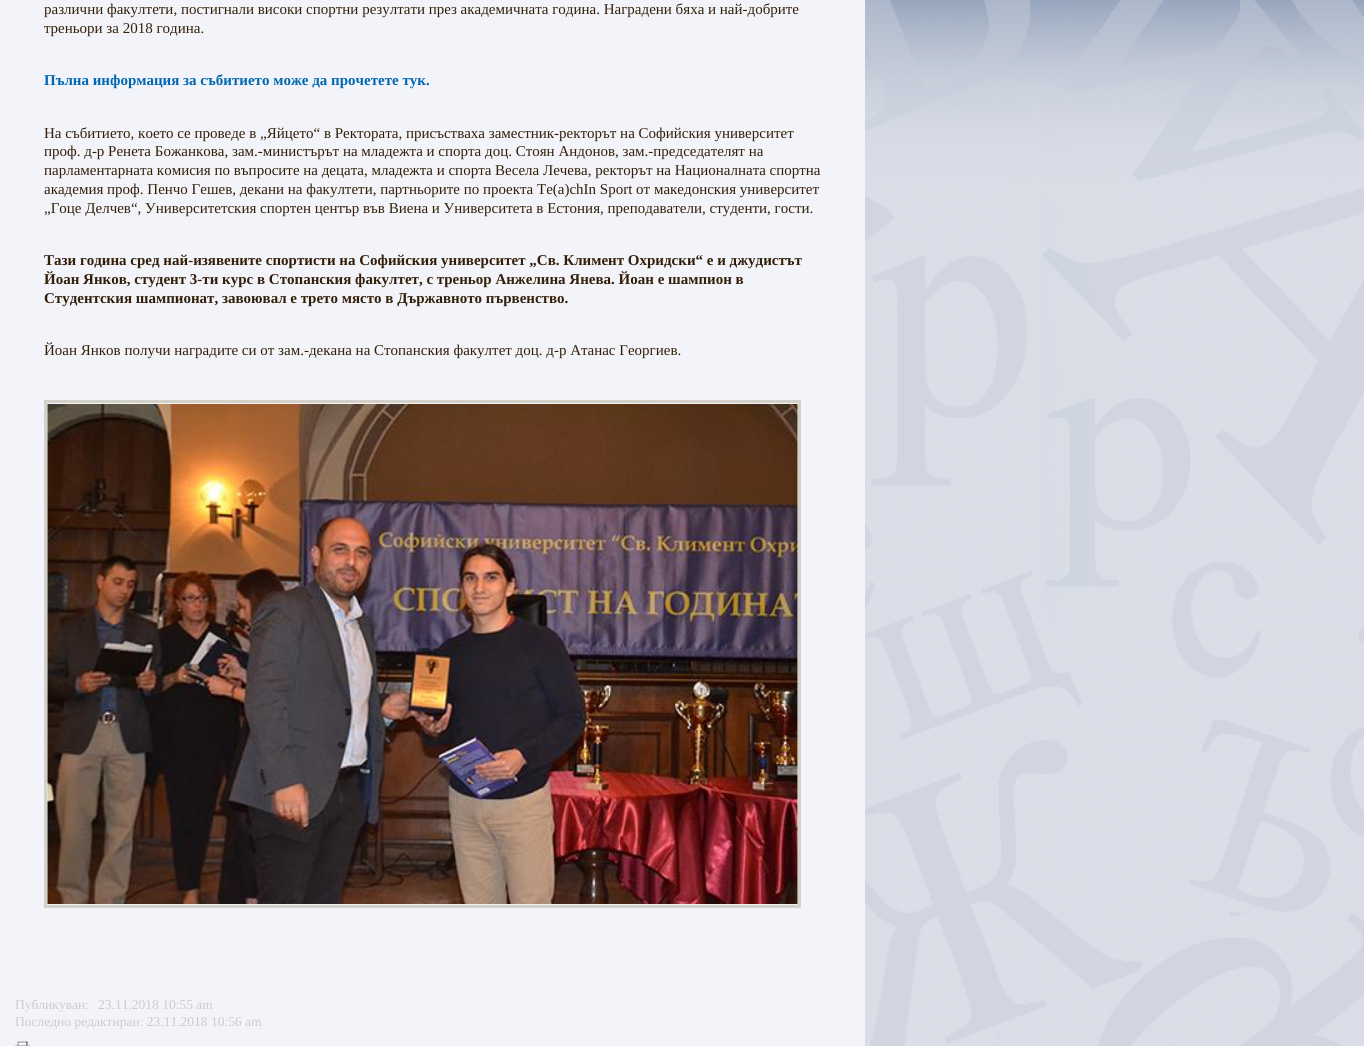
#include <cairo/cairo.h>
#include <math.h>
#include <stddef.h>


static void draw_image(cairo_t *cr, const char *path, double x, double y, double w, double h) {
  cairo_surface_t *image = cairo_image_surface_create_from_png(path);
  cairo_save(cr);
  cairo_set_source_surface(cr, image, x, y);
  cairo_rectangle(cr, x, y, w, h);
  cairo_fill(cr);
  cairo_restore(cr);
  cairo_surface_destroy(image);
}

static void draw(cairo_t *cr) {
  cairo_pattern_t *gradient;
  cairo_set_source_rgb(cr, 1, 1, 1);
  cairo_paint(cr);
  draw_image(cr, "images/1.png", 865, 0, 499, 1046);
  gradient = cairo_pattern_create_linear(432, -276, 433, 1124);
  cairo_pattern_add_color_stop_rgba(gradient, 0.02, 249 / 255.0, 250 / 255.0, 1, 1);
  cairo_pattern_add_color_stop_rgba(gradient, 0.03, 243 / 255.0, 244 / 255.0, 249 / 255.0, 1);
  cairo_set_source(cr, gradient);
  cairo_pattern_destroy(gradient);
  cairo_rectangle(cr, 0, 0, 865, 1046);
  cairo_fill(cr);
  cairo_rectangle(cr, 45.5, 401.5, 754, 505);
  cairo_set_source_rgb(cr, 212 / 255.0, 210 / 255.0, 200 / 255.0);
  cairo_set_line_width(cr, 3);
  cairo_stroke(cr);
  draw_image(cr, "images/2.png", 47, 404, 751, 500);
  draw_image(cr, "images/3.png", 15, 1041, 16, 5);
  cairo_select_font_face(cr, "Liberation Serif", CAIRO_FONT_SLANT_NORMAL, CAIRO_FONT_WEIGHT_NORMAL);
  cairo_set_font_size(cr, 15);
  cairo_set_source_rgb(cr, 51 / 255.0, 31 / 255.0, 9 / 255.0);
  cairo_move_to(cr, 44, 14);
  cairo_show_text(cr, "различни факултети, постигнали високи спортни резултати през академичната година. Наградени бяха и най-добрите");
  cairo_move_to(cr, 44, 33);
  cairo_show_text(cr, "треньори за 2018 година.");
  cairo_select_font_face(cr, "Liberation Serif", CAIRO_FONT_SLANT_NORMAL, CAIRO_FONT_WEIGHT_BOLD);
  cairo_set_source_rgb(cr, 0, 102 / 255.0, 177 / 255.0);
  cairo_move_to(cr, 44, 85);
  cairo_show_text(cr, "Пълна информация за събитието може да прочетете тук.");
  cairo_select_font_face(cr, "Liberation Serif", CAIRO_FONT_SLANT_NORMAL, CAIRO_FONT_WEIGHT_NORMAL);
  cairo_set_source_rgb(cr, 51 / 255.0, 31 / 255.0, 9 / 255.0);
  cairo_move_to(cr, 44, 138);
  cairo_show_text(cr, "На събитието, което се проведе в „Яйцето“ в Ректората, присъстваха заместник-ректорът на Софийския университет");
  cairo_move_to(cr, 44, 156);
  cairo_show_text(cr, "проф. д-р Ренета Божанкова, зам.-министърът на младежта и спорта доц. Стоян Андонов, зам.-председателят на");
  cairo_move_to(cr, 44, 175);
  cairo_show_text(cr, "парламентарната комисия по въпросите на децата, младежта и спорта Весела Лечева, ректорът на Националната спортна");
  cairo_move_to(cr, 44, 194);
  cairo_show_text(cr, "академия проф. Пенчо Гешев, декани на факултети, партньорите по проекта Te(a)chIn Sport от македонския университет");
  cairo_move_to(cr, 44, 213);
  cairo_show_text(cr, "„Гоце Делчев“, Университетския спортен център във Виена и Университета в Естония, преподаватели, студенти, гости.");
  cairo_select_font_face(cr, "Liberation Serif", CAIRO_FONT_SLANT_NORMAL, CAIRO_FONT_WEIGHT_BOLD);
  cairo_move_to(cr, 44, 265);
  cairo_show_text(cr, "Тази година сред най-изявените спортисти на Софийския университет „Св. Климент Охридски“ е и джудистът");
  cairo_move_to(cr, 44, 284);
  cairo_show_text(cr, "Йоан Янков, студент 3-ти курс в Стопанския факултет, с треньор Анжелина Янева. Йоан е шампион в");
  cairo_move_to(cr, 44, 303);
  cairo_show_text(cr, "Студентския шампионат, завоювал е трето място в Държавното първенство.");
  cairo_select_font_face(cr, "Liberation Serif", CAIRO_FONT_SLANT_NORMAL, CAIRO_FONT_WEIGHT_NORMAL);
  cairo_move_to(cr, 44, 355);
  cairo_show_text(cr, "Йоан Янков получи наградите си от зам.-декана на Стопанския факултет доц. д-р Атанас Георгиев.");
  cairo_set_font_size(cr, 13.5);
  cairo_set_source_rgb(cr, 204 / 255.0, 204 / 255.0, 204 / 255.0);
  cairo_move_to(cr, 15, 1009);
  cairo_show_text(cr, "Публикуван:");
  cairo_move_to(cr, 98, 1009);
  cairo_show_text(cr, "23.11.2018 10:55 am");
  cairo_move_to(cr, 15, 1026);
  cairo_show_text(cr, "Последно редактиран: 23.11.2018 10:56 am");
}

int main(void) {
  cairo_surface_t *surface = cairo_image_surface_create(CAIRO_FORMAT_RGB24, 1364, 1046);
  cairo_t *cr = cairo_create(surface);
  cairo_font_options_t *options = cairo_font_options_create();
  cairo_font_options_set_hint_metrics(options, CAIRO_HINT_METRICS_OFF);
  cairo_font_options_set_hint_style(options, CAIRO_HINT_STYLE_NONE);
  cairo_set_font_options(cr, options);
  cairo_set_miter_limit(cr, 4);
  draw(cr);
  cairo_surface_write_to_png(surface, "out.png");
  cairo_font_options_destroy(options);
  cairo_destroy(cr);
  cairo_surface_destroy(surface);
  return 0;
}
